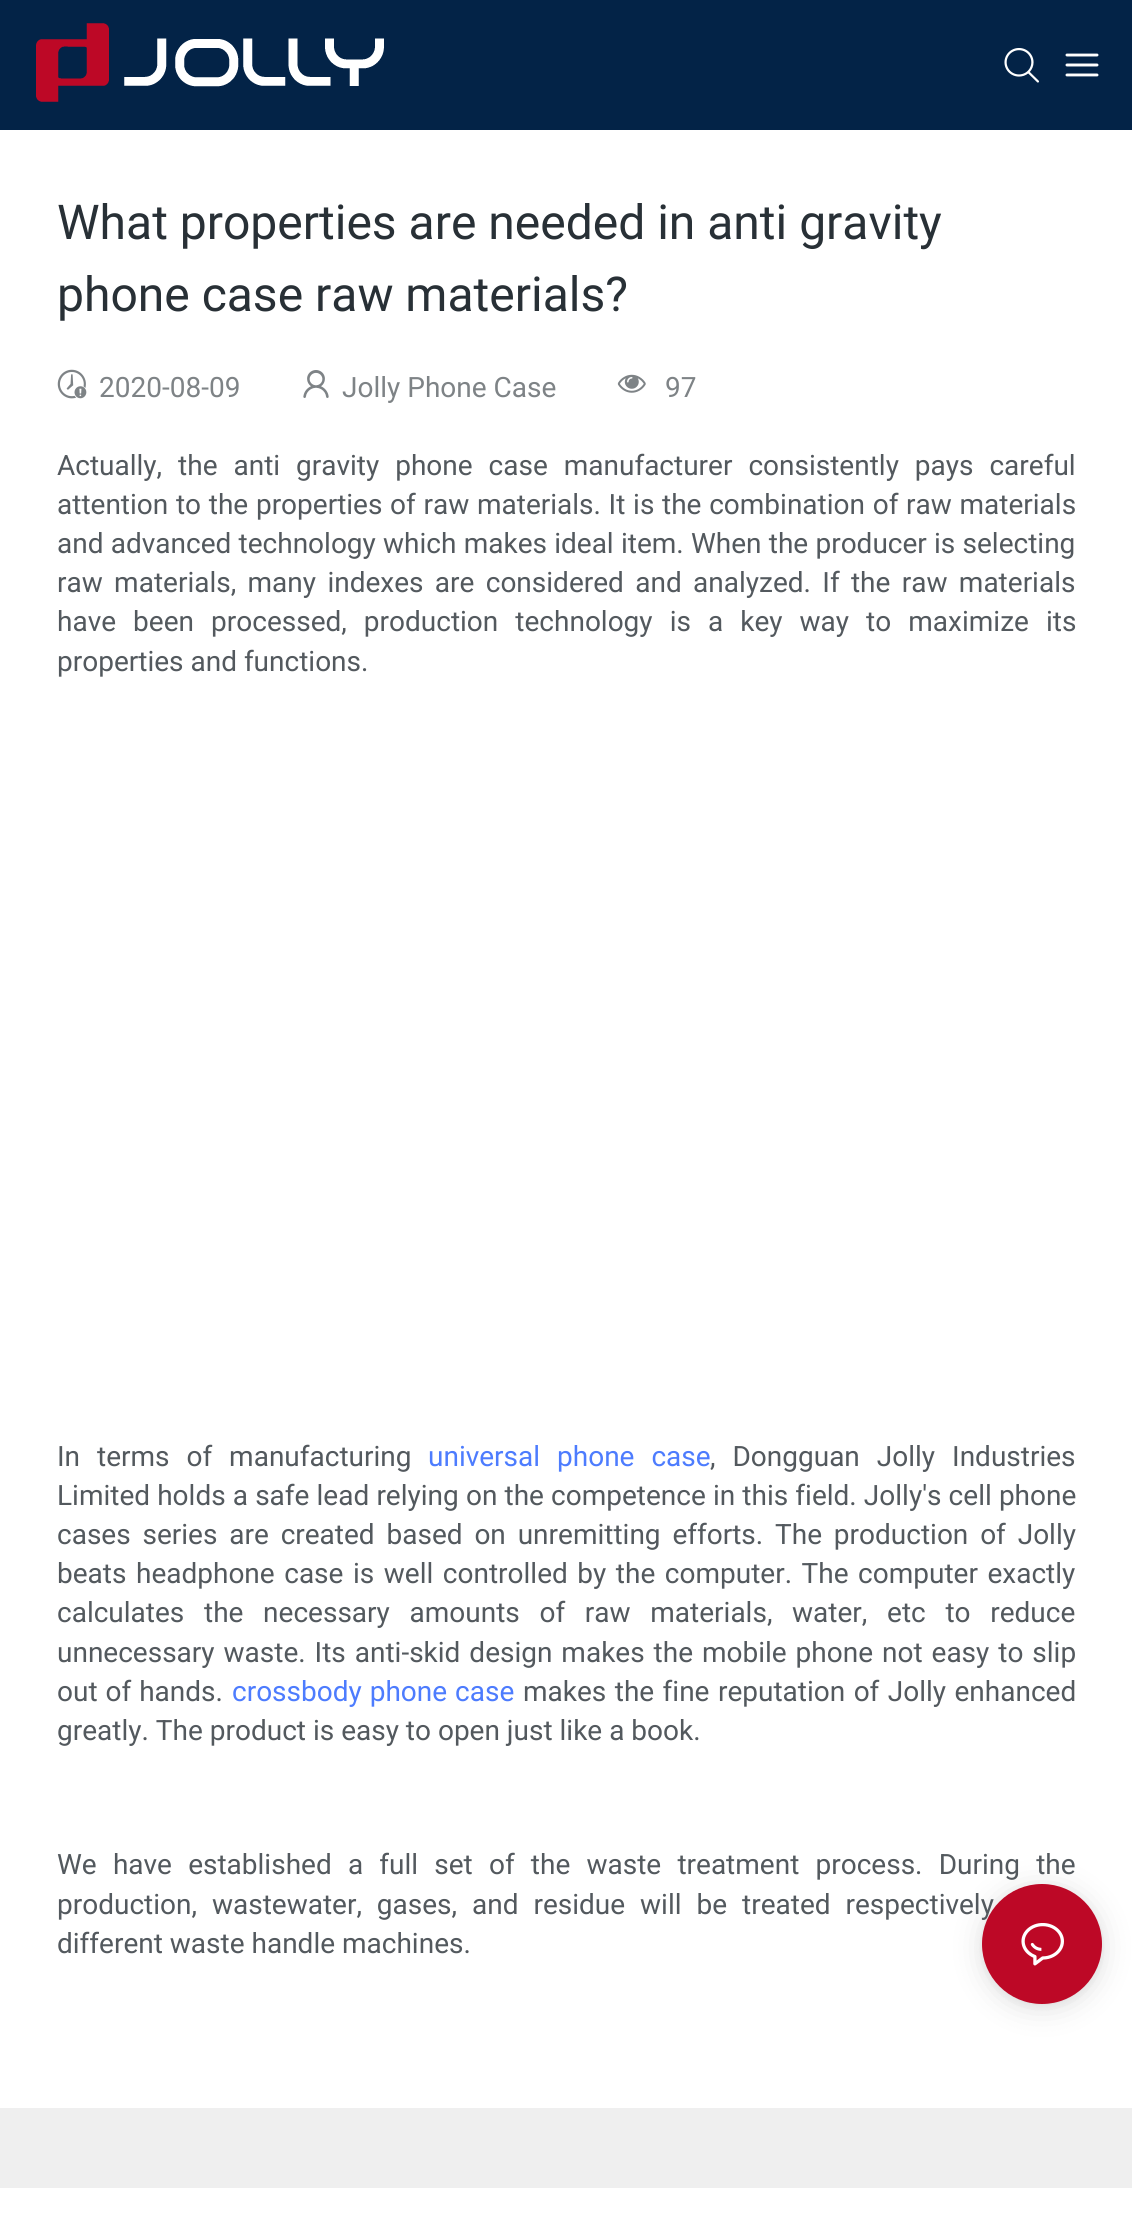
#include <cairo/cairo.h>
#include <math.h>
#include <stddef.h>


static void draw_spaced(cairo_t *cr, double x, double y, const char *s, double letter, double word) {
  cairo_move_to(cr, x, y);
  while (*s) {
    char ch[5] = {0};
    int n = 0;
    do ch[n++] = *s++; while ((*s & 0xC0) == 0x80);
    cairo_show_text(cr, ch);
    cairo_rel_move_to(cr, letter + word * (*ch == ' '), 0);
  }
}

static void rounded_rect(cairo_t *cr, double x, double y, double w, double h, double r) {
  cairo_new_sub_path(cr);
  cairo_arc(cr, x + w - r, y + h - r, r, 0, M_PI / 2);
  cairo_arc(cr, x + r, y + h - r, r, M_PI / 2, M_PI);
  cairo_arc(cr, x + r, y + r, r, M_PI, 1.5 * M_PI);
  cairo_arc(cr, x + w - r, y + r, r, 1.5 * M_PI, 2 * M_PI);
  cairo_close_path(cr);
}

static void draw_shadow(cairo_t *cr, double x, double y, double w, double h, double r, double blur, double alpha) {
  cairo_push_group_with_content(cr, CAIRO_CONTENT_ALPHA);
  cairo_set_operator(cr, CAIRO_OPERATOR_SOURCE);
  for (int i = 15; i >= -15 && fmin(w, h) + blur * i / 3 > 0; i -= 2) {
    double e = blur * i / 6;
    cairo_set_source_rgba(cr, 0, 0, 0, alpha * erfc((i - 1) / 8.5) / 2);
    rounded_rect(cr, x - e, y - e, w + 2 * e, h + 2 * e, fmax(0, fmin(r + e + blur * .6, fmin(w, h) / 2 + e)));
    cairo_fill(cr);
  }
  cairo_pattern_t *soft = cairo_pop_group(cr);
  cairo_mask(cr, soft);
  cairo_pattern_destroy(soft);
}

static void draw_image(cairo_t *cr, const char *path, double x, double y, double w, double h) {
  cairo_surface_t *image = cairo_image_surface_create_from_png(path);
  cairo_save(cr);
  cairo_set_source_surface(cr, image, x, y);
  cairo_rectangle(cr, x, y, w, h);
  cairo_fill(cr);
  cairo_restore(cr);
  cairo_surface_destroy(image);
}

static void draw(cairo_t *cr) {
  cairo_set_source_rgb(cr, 239 / 255.0, 239 / 255.0, 239 / 255.0);
  cairo_paint(cr);
  cairo_set_source_rgb(cr, 3 / 255.0, 35 / 255.0, 71 / 255.0);
  cairo_rectangle(cr, 0, 0, 1132, 130);
  cairo_fill(cr);
  draw_image(cr, "images/1.png", 36, 23, 348, 79);
  draw_image(cr, "images/2.png", 1004, 48, 35, 35);
  draw_image(cr, "images/3.png", 1065, 53, 34, 24);
  cairo_set_source_rgb(cr, 1, 1, 1);
  cairo_rectangle(cr, 0, 130, 1132, 1978);
  cairo_fill(cr);
  draw_image(cr, "images/4.png", 57, 369, 30, 30);
  draw_image(cr, "images/5.png", 303, 370, 26, 28);
  draw_image(cr, "images/6.png", 617, 374, 29, 19);
  cairo_rectangle(cr, 0, 2188, 1132, 37);
  cairo_fill(cr);
  cairo_set_source_rgb(cr, 0, 0, 0);
  draw_shadow(cr, 982, 1888, 120, 120, 60, 16, 0.12);
  draw_shadow(cr, 982, 1886, 120, 120, 60, 4, 0.06);
  cairo_select_font_face(cr, "Roboto", CAIRO_FONT_SLANT_NORMAL, CAIRO_FONT_WEIGHT_NORMAL);
  cairo_set_font_size(cr, 48);
  cairo_set_source_rgb(cr, 40 / 255.0, 48 / 255.0, 54 / 255.0);
  cairo_move_to(cr, 57, 239);
  cairo_show_text(cr, "What properties are needed in anti gravity");
  cairo_move_to(cr, 57, 311);
  cairo_show_text(cr, "phone case raw materials?");
  cairo_set_font_size(cr, 28);
  cairo_set_source_rgb(cr, 126 / 255.0, 131 / 255.0, 134 / 255.0);
  cairo_move_to(cr, 99, 397);
  cairo_show_text(cr, "2020-08-09");
  cairo_move_to(cr, 342, 397);
  cairo_show_text(cr, "Jolly Phone Case");
  cairo_move_to(cr, 665, 397);
  cairo_show_text(cr, "97");
  cairo_set_source_rgb(cr, 83 / 255.0, 89 / 255.0, 94 / 255.0);
  draw_spaced(cr, 57, 475, "Actually, the anti gravity phone case manufacturer consistently pays careful", 0, 9);
  draw_spaced(cr, 57, 514, "attention to the properties of raw materials. It is the combination of raw materials", 0, 0.75);
  draw_spaced(cr, 57, 553, "and advanced technology which makes ideal item. When the producer is selecting", 0, 0.3);
  draw_spaced(cr, 57, 592, "raw materials, many indexes are considered and analyzed. If the raw materials", 0, 4.4);
  draw_spaced(cr, 57, 631, "have been processed, production technology is a key way to maximize its", 0, 10.1);
  cairo_move_to(cr, 57, 671);
  cairo_show_text(cr, "properties and functions.");
  draw_spaced(cr, 57, 1466, "In terms of manufacturing", 0, 10);
  cairo_set_source_rgb(cr, 77 / 255.0, 124 / 255.0, 254 / 255.0);
  draw_spaced(cr, 428, 1466, "universal phone case", 0, 10);
  cairo_set_source_rgb(cr, 83 / 255.0, 89 / 255.0, 94 / 255.0);
  draw_spaced(cr, 710, 1466, ", Dongguan Jolly Industries", 0, 10);
  draw_spaced(cr, 57, 1505, "Limited holds a safe lead relying on the competence in this field. Jolly's cell phone", 0, 0.2);
  draw_spaced(cr, 57, 1544, "cases series are created based on unremitting efforts. The production of Jolly", 0, 4.9);
  draw_spaced(cr, 57, 1583, "beats headphone case is well controlled by the computer. The computer exactly", 0, 2.6);
  draw_spaced(cr, 57, 1622, "calculates the necessary amounts of raw materials, water, etc to reduce", 0, 12.75);
  draw_spaced(cr, 57, 1662, "unnecessary waste. Its anti-skid design makes the mobile phone not easy to slip", 0, 2);
  draw_spaced(cr, 57, 1701, "out of hands.", 0, 1);
  cairo_set_source_rgb(cr, 77 / 255.0, 124 / 255.0, 254 / 255.0);
  draw_spaced(cr, 232, 1701, "crossbody phone case", 0, 1);
  cairo_set_source_rgb(cr, 83 / 255.0, 89 / 255.0, 94 / 255.0);
  draw_spaced(cr, 523, 1701, "makes the fine reputation of Jolly enhanced", 0, 1.5);
  cairo_move_to(cr, 57, 1740);
  cairo_show_text(cr, "greatly. The product is easy to open just like a book.");
  draw_spaced(cr, 57, 1874, "We have established a full set of the waste treatment process. During the", 0, 9.25);
  draw_spaced(cr, 57, 1914, "production, wastewater, gases, and residue will be treated respectively", 0, 8);
  cairo_move_to(cr, 57, 1953);
  cairo_show_text(cr, "different waste handle machines.");
  cairo_set_source_rgb(cr, 189 / 255.0, 8 / 255.0, 38 / 255.0);
  cairo_new_path(cr);
  cairo_arc(cr, 1042, 1944, 60, 0, 2 * M_PI);
  cairo_fill(cr);
  draw_image(cr, "images/7.png", 1021, 1923, 43, 43);
}

int main(void) {
  cairo_surface_t *surface = cairo_image_surface_create(CAIRO_FORMAT_RGB24, 1132, 2225);
  cairo_t *cr = cairo_create(surface);
  cairo_font_options_t *options = cairo_font_options_create();
  cairo_font_options_set_hint_metrics(options, CAIRO_HINT_METRICS_OFF);
  cairo_font_options_set_hint_style(options, CAIRO_HINT_STYLE_NONE);
  cairo_set_font_options(cr, options);
  cairo_set_miter_limit(cr, 4);
  draw(cr);
  cairo_surface_write_to_png(surface, "out.png");
  cairo_font_options_destroy(options);
  cairo_destroy(cr);
  cairo_surface_destroy(surface);
  return 0;
}
